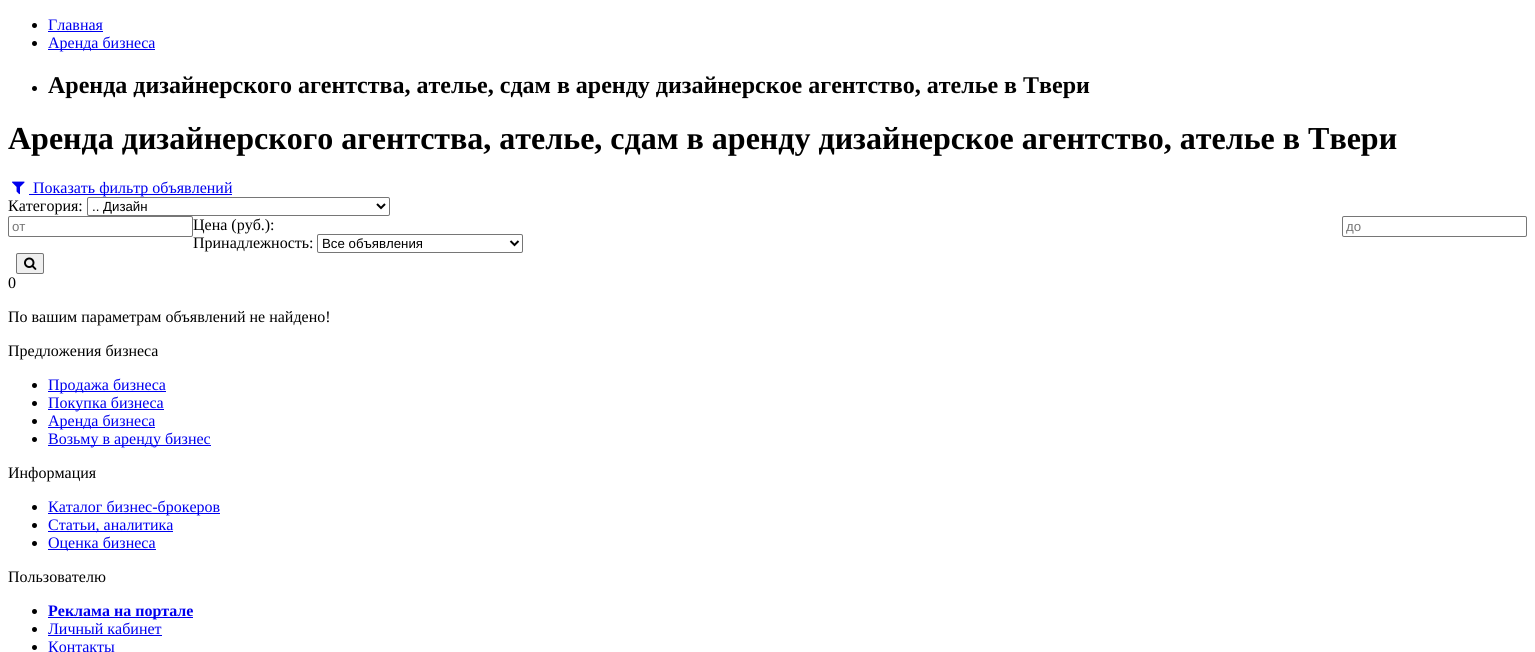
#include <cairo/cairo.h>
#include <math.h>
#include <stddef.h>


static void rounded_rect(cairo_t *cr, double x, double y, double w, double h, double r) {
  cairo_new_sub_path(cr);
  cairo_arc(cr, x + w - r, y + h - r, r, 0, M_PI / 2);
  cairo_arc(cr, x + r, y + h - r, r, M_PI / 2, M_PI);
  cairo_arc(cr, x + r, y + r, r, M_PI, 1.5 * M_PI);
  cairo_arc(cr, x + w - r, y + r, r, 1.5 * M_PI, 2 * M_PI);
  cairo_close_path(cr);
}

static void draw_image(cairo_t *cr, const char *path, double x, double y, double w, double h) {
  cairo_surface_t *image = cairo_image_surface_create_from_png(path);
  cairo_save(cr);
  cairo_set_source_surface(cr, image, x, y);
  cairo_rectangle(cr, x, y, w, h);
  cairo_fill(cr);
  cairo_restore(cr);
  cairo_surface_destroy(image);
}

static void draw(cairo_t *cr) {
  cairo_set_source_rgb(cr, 1, 1, 1);
  cairo_paint(cr);
  cairo_set_source_rgb(cr, 0, 0, 0);
  cairo_arc(cr, 34.5, 25.5, 2.5, 0, 2 * M_PI);
  cairo_fill(cr);
  cairo_set_source_rgb(cr, 0, 0, 238 / 255.0);
  cairo_rectangle(cr, 48, 31, 55, 1);
  cairo_fill(cr);
  cairo_set_source_rgb(cr, 0, 0, 0);
  cairo_arc(cr, 34.5, 43.5, 2.5, 0, 2 * M_PI);
  cairo_fill(cr);
  cairo_set_source_rgb(cr, 0, 0, 238 / 255.0);
  cairo_rectangle(cr, 48, 49, 107, 1);
  cairo_fill(cr);
  cairo_set_source_rgb(cr, 0, 0, 0);
  cairo_arc(cr, 34.5, 88.5, 2.5, 0, 2 * M_PI);
  cairo_fill(cr);
  draw_image(cr, "images/1.png", 12, 181, 13, 14);
  cairo_set_source_rgb(cr, 0, 0, 238 / 255.0);
  cairo_rectangle(cr, 29, 194, 203, 1);
  cairo_fill(cr);
  rounded_rect(cr, 87.5, 197.5, 302, 18, 1.5);
  cairo_set_source_rgb(cr, 118 / 255.0, 118 / 255.0, 118 / 255.0);
  cairo_set_line_width(cr, 1);
  cairo_stroke(cr);
  cairo_new_path(cr);
  cairo_move_to(cr, 377, 204);
  cairo_line_to(cr, 381, 208);
  cairo_line_to(cr, 385, 204);
  cairo_set_source_rgb(cr, 0, 0, 0);
  cairo_set_line_width(cr, 2);
  cairo_stroke(cr);
  rounded_rect(cr, 8.5, 216.5, 184, 20, 1.5);
  cairo_set_source_rgb(cr, 118 / 255.0, 118 / 255.0, 118 / 255.0);
  cairo_set_line_width(cr, 1);
  cairo_stroke(cr);
  rounded_rect(cr, 1342.5, 216.5, 184, 20, 1.5);
  cairo_stroke(cr);
  rounded_rect(cr, 317.5, 234.5, 205, 18, 1.5);
  cairo_stroke(cr);
  cairo_new_path(cr);
  cairo_move_to(cr, 510.5, 241);
  cairo_line_to(cr, 514.5, 245);
  cairo_line_to(cr, 518.5, 241);
  cairo_set_source_rgb(cr, 0, 0, 0);
  cairo_set_line_width(cr, 2);
  cairo_stroke(cr);
  cairo_set_source_rgb(cr, 239 / 255.0, 239 / 255.0, 239 / 255.0);
  rounded_rect(cr, 16.5, 253.5, 27, 20, 1.5);
  cairo_fill_preserve(cr);
  cairo_set_source_rgb(cr, 118 / 255.0, 118 / 255.0, 118 / 255.0);
  cairo_set_line_width(cr, 1);
  cairo_stroke(cr);
  draw_image(cr, "images/2.png", 24, 257, 13, 13);
  cairo_set_source_rgb(cr, 0, 0, 0);
  cairo_arc(cr, 34.5, 385.5, 2.5, 0, 2 * M_PI);
  cairo_fill(cr);
  cairo_set_source_rgb(cr, 0, 0, 238 / 255.0);
  cairo_rectangle(cr, 48, 391, 118, 1);
  cairo_fill(cr);
  cairo_set_source_rgb(cr, 0, 0, 0);
  cairo_arc(cr, 34.5, 403.5, 2.5, 0, 2 * M_PI);
  cairo_fill(cr);
  cairo_set_source_rgb(cr, 0, 0, 238 / 255.0);
  cairo_rectangle(cr, 48, 409, 116, 1);
  cairo_fill(cr);
  cairo_set_source_rgb(cr, 0, 0, 0);
  cairo_arc(cr, 34.5, 421.5, 2.5, 0, 2 * M_PI);
  cairo_fill(cr);
  cairo_set_source_rgb(cr, 0, 0, 238 / 255.0);
  cairo_rectangle(cr, 48, 427, 107, 1);
  cairo_fill(cr);
  cairo_set_source_rgb(cr, 0, 0, 0);
  cairo_arc(cr, 34.5, 439.5, 2.5, 0, 2 * M_PI);
  cairo_fill(cr);
  cairo_set_source_rgb(cr, 0, 0, 238 / 255.0);
  cairo_rectangle(cr, 48, 445, 163, 1);
  cairo_fill(cr);
  cairo_set_source_rgb(cr, 0, 0, 0);
  cairo_arc(cr, 34.5, 507.5, 2.5, 0, 2 * M_PI);
  cairo_fill(cr);
  cairo_set_source_rgb(cr, 0, 0, 238 / 255.0);
  cairo_rectangle(cr, 48, 513, 172, 1);
  cairo_fill(cr);
  cairo_set_source_rgb(cr, 0, 0, 0);
  cairo_arc(cr, 34.5, 525.5, 2.5, 0, 2 * M_PI);
  cairo_fill(cr);
  cairo_set_source_rgb(cr, 0, 0, 238 / 255.0);
  cairo_rectangle(cr, 48, 531, 125, 1);
  cairo_fill(cr);
  cairo_set_source_rgb(cr, 0, 0, 0);
  cairo_arc(cr, 34.5, 543.5, 2.5, 0, 2 * M_PI);
  cairo_fill(cr);
  cairo_set_source_rgb(cr, 0, 0, 238 / 255.0);
  cairo_rectangle(cr, 48, 549, 108, 1);
  cairo_fill(cr);
  cairo_set_source_rgb(cr, 0, 0, 0);
  cairo_arc(cr, 34.5, 611.5, 2.5, 0, 2 * M_PI);
  cairo_fill(cr);
  cairo_set_source_rgb(cr, 0, 0, 238 / 255.0);
  cairo_rectangle(cr, 48, 617, 145, 1);
  cairo_fill(cr);
  cairo_set_source_rgb(cr, 0, 0, 0);
  cairo_arc(cr, 34.5, 629.5, 2.5, 0, 2 * M_PI);
  cairo_fill(cr);
  cairo_set_source_rgb(cr, 0, 0, 238 / 255.0);
  cairo_rectangle(cr, 48, 635, 114, 1);
  cairo_fill(cr);
  cairo_set_source_rgb(cr, 0, 0, 0);
  cairo_arc(cr, 34.5, 647.5, 2.5, 0, 2 * M_PI);
  cairo_fill(cr);
  cairo_select_font_face(cr, "Liberation Serif", CAIRO_FONT_SLANT_NORMAL, CAIRO_FONT_WEIGHT_NORMAL);
  cairo_set_font_size(cr, 16);
  cairo_set_source_rgb(cr, 0, 0, 238 / 255.0);
  cairo_move_to(cr, 48, 30);
  cairo_show_text(cr, "Главная");
  cairo_move_to(cr, 48, 48);
  cairo_show_text(cr, "Аренда бизнеса");
  cairo_select_font_face(cr, "Liberation Serif", CAIRO_FONT_SLANT_NORMAL, CAIRO_FONT_WEIGHT_BOLD);
  cairo_set_font_size(cr, 24);
  cairo_set_source_rgb(cr, 0, 0, 0);
  cairo_move_to(cr, 48, 93);
  cairo_show_text(cr, "Аренда дизайнерского агентства, ателье, сдам в аренду дизайнерское агентство, ателье в Твери");
  cairo_set_font_size(cr, 32);
  cairo_move_to(cr, 8, 149);
  cairo_show_text(cr, "Аренда дизайнерского агентства, ателье, сдам в аренду дизайнерское агентство, ателье в Твери");
  cairo_select_font_face(cr, "Liberation Serif", CAIRO_FONT_SLANT_NORMAL, CAIRO_FONT_WEIGHT_NORMAL);
  cairo_set_font_size(cr, 16);
  cairo_set_source_rgb(cr, 0, 0, 238 / 255.0);
  cairo_move_to(cr, 33, 193);
  cairo_show_text(cr, "Показать фильтр объявлений");
  cairo_set_source_rgb(cr, 0, 0, 0);
  cairo_move_to(cr, 8, 211);
  cairo_show_text(cr, "Категория:");
  cairo_select_font_face(cr, "Liberation Sans", CAIRO_FONT_SLANT_NORMAL, CAIRO_FONT_WEIGHT_NORMAL);
  cairo_set_font_size(cr, 13.25);
  cairo_move_to(cr, 92, 211);
  cairo_show_text(cr, ".. Дизайн");
  cairo_set_source_rgb(cr, 117 / 255.0, 117 / 255.0, 117 / 255.0);
  cairo_move_to(cr, 12, 231);
  cairo_show_text(cr, "от");
  cairo_select_font_face(cr, "Liberation Serif", CAIRO_FONT_SLANT_NORMAL, CAIRO_FONT_WEIGHT_NORMAL);
  cairo_set_font_size(cr, 16);
  cairo_set_source_rgb(cr, 0, 0, 0);
  cairo_move_to(cr, 193, 230);
  cairo_show_text(cr, "Цена (руб.):");
  cairo_select_font_face(cr, "Liberation Sans", CAIRO_FONT_SLANT_NORMAL, CAIRO_FONT_WEIGHT_NORMAL);
  cairo_set_font_size(cr, 13.25);
  cairo_set_source_rgb(cr, 117 / 255.0, 117 / 255.0, 117 / 255.0);
  cairo_move_to(cr, 1346, 231);
  cairo_show_text(cr, "до");
  cairo_select_font_face(cr, "Liberation Serif", CAIRO_FONT_SLANT_NORMAL, CAIRO_FONT_WEIGHT_NORMAL);
  cairo_set_font_size(cr, 16);
  cairo_set_source_rgb(cr, 0, 0, 0);
  cairo_move_to(cr, 193, 248);
  cairo_show_text(cr, "Принадлежность:");
  cairo_select_font_face(cr, "Liberation Sans", CAIRO_FONT_SLANT_NORMAL, CAIRO_FONT_WEIGHT_NORMAL);
  cairo_set_font_size(cr, 13.25);
  cairo_move_to(cr, 322, 248);
  cairo_show_text(cr, "Все объявления");
  cairo_select_font_face(cr, "Liberation Serif", CAIRO_FONT_SLANT_NORMAL, CAIRO_FONT_WEIGHT_NORMAL);
  cairo_set_font_size(cr, 16);
  cairo_move_to(cr, 8, 288);
  cairo_show_text(cr, "0");
  cairo_move_to(cr, 8, 322);
  cairo_show_text(cr, "По вашим параметрам объявлений не найдено!");
  cairo_move_to(cr, 8, 356);
  cairo_show_text(cr, "Предложения бизнеса");
  cairo_set_source_rgb(cr, 0, 0, 238 / 255.0);
  cairo_move_to(cr, 48, 390);
  cairo_show_text(cr, "Продажа бизнеса");
  cairo_move_to(cr, 48, 408);
  cairo_show_text(cr, "Покупка бизнеса");
  cairo_move_to(cr, 48, 426);
  cairo_show_text(cr, "Аренда бизнеса");
  cairo_move_to(cr, 48, 444);
  cairo_show_text(cr, "Возьму в аренду бизнес");
  cairo_set_source_rgb(cr, 0, 0, 0);
  cairo_move_to(cr, 8, 478);
  cairo_show_text(cr, "Информация");
  cairo_set_source_rgb(cr, 0, 0, 238 / 255.0);
  cairo_move_to(cr, 48, 512);
  cairo_show_text(cr, "Каталог бизнес-брокеров");
  cairo_move_to(cr, 48, 530);
  cairo_show_text(cr, "Статьи, аналитика");
  cairo_move_to(cr, 48, 548);
  cairo_show_text(cr, "Оценка бизнеса");
  cairo_set_source_rgb(cr, 0, 0, 0);
  cairo_move_to(cr, 8, 582);
  cairo_show_text(cr, "Пользователю");
  cairo_select_font_face(cr, "Liberation Serif", CAIRO_FONT_SLANT_NORMAL, CAIRO_FONT_WEIGHT_BOLD);
  cairo_set_source_rgb(cr, 0, 0, 238 / 255.0);
  cairo_move_to(cr, 48, 616);
  cairo_show_text(cr, "Реклама на портале");
  cairo_select_font_face(cr, "Liberation Serif", CAIRO_FONT_SLANT_NORMAL, CAIRO_FONT_WEIGHT_NORMAL);
  cairo_move_to(cr, 48, 634);
  cairo_show_text(cr, "Личный кабинет");
  cairo_move_to(cr, 48, 652);
  cairo_show_text(cr, "Контакты");
}

int main(void) {
  cairo_surface_t *surface = cairo_image_surface_create(CAIRO_FORMAT_RGB24, 1535, 652);
  cairo_t *cr = cairo_create(surface);
  cairo_font_options_t *options = cairo_font_options_create();
  cairo_font_options_set_hint_metrics(options, CAIRO_HINT_METRICS_OFF);
  cairo_font_options_set_hint_style(options, CAIRO_HINT_STYLE_NONE);
  cairo_set_font_options(cr, options);
  cairo_set_miter_limit(cr, 4);
  draw(cr);
  cairo_surface_write_to_png(surface, "out.png");
  cairo_font_options_destroy(options);
  cairo_destroy(cr);
  cairo_surface_destroy(surface);
  return 0;
}
